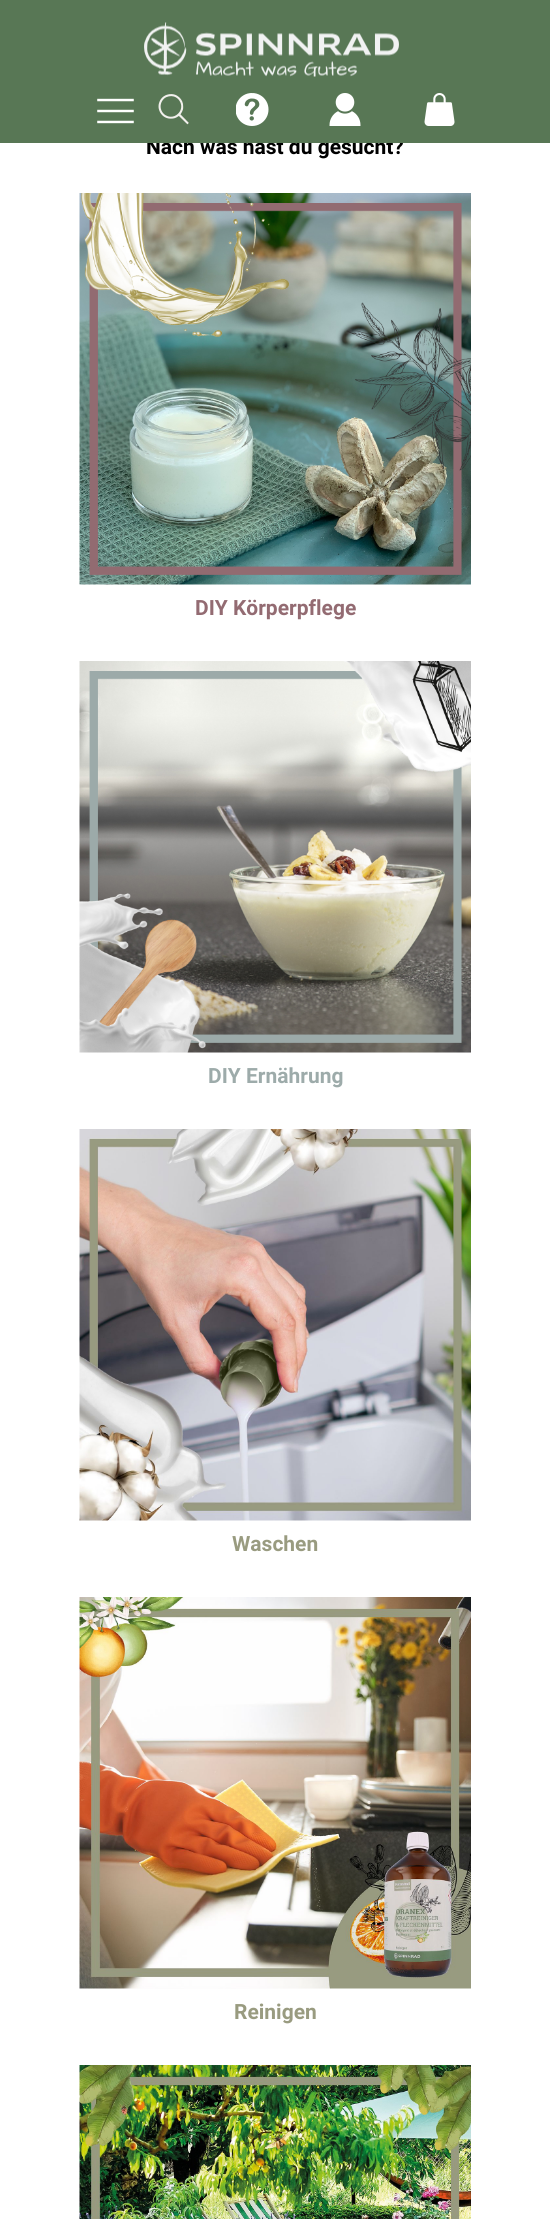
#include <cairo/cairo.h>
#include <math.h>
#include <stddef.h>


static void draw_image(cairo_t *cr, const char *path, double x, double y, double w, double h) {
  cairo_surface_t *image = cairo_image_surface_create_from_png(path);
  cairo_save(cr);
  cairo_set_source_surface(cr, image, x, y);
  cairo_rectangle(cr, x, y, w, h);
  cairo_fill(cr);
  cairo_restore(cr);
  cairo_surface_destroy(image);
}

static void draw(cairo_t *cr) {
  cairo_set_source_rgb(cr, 1, 1, 1);
  cairo_paint(cr);
  draw_image(cr, "images/7.png", 79, 193, 392, 392);
  draw_image(cr, "images/8.png", 79, 661, 392, 392);
  draw_image(cr, "images/9.png", 79, 1129, 392, 392);
  draw_image(cr, "images/10.png", 79, 1597, 392, 392);
  draw_image(cr, "images/11.png", 79, 2065, 392, 154);
  cairo_select_font_face(cr, "Roboto", CAIRO_FONT_SLANT_NORMAL, CAIRO_FONT_WEIGHT_BOLD);
  cairo_set_font_size(cr, 21);
  cairo_set_source_rgb(cr, 0, 0, 0);
  cairo_move_to(cr, 146, 154);
  cairo_show_text(cr, "Nach was hast du gesucht?");
  cairo_set_source_rgb(cr, 88 / 255.0, 119 / 255.0, 85 / 255.0);
  cairo_rectangle(cr, 0, 0, 550, 143);
  cairo_fill(cr);
  draw_image(cr, "images/3.png", 158, 94, 31, 31);
  draw_image(cr, "images/6.png", 424, 93, 31, 33);
  draw_image(cr, "images/5.png", 329, 93, 32, 33);
  draw_image(cr, "images/4.png", 236, 93, 33, 33);
  draw_image(cr, "images/2.png", 97, 98, 37, 26);
  draw_image(cr, "images/1.png", 144, 22, 255, 55);
  cairo_set_source_rgb(cr, 147 / 255.0, 107 / 255.0, 114 / 255.0);
  cairo_move_to(cr, 195, 615);
  cairo_show_text(cr, "DIY Körperpflege");
  cairo_set_source_rgb(cr, 157 / 255.0, 171 / 255.0, 170 / 255.0);
  cairo_move_to(cr, 208, 1083);
  cairo_show_text(cr, "DIY Ernährung");
  cairo_set_source_rgb(cr, 153 / 255.0, 155 / 255.0, 128 / 255.0);
  cairo_move_to(cr, 232, 1551);
  cairo_show_text(cr, "Waschen");
  cairo_move_to(cr, 234, 2019);
  cairo_show_text(cr, "Reinigen");
}

int main(void) {
  cairo_surface_t *surface = cairo_image_surface_create(CAIRO_FORMAT_RGB24, 550, 2219);
  cairo_t *cr = cairo_create(surface);
  cairo_font_options_t *options = cairo_font_options_create();
  cairo_font_options_set_hint_metrics(options, CAIRO_HINT_METRICS_OFF);
  cairo_font_options_set_hint_style(options, CAIRO_HINT_STYLE_NONE);
  cairo_set_font_options(cr, options);
  cairo_set_miter_limit(cr, 4);
  draw(cr);
  cairo_surface_write_to_png(surface, "out.png");
  cairo_font_options_destroy(options);
  cairo_destroy(cr);
  cairo_surface_destroy(surface);
  return 0;
}
